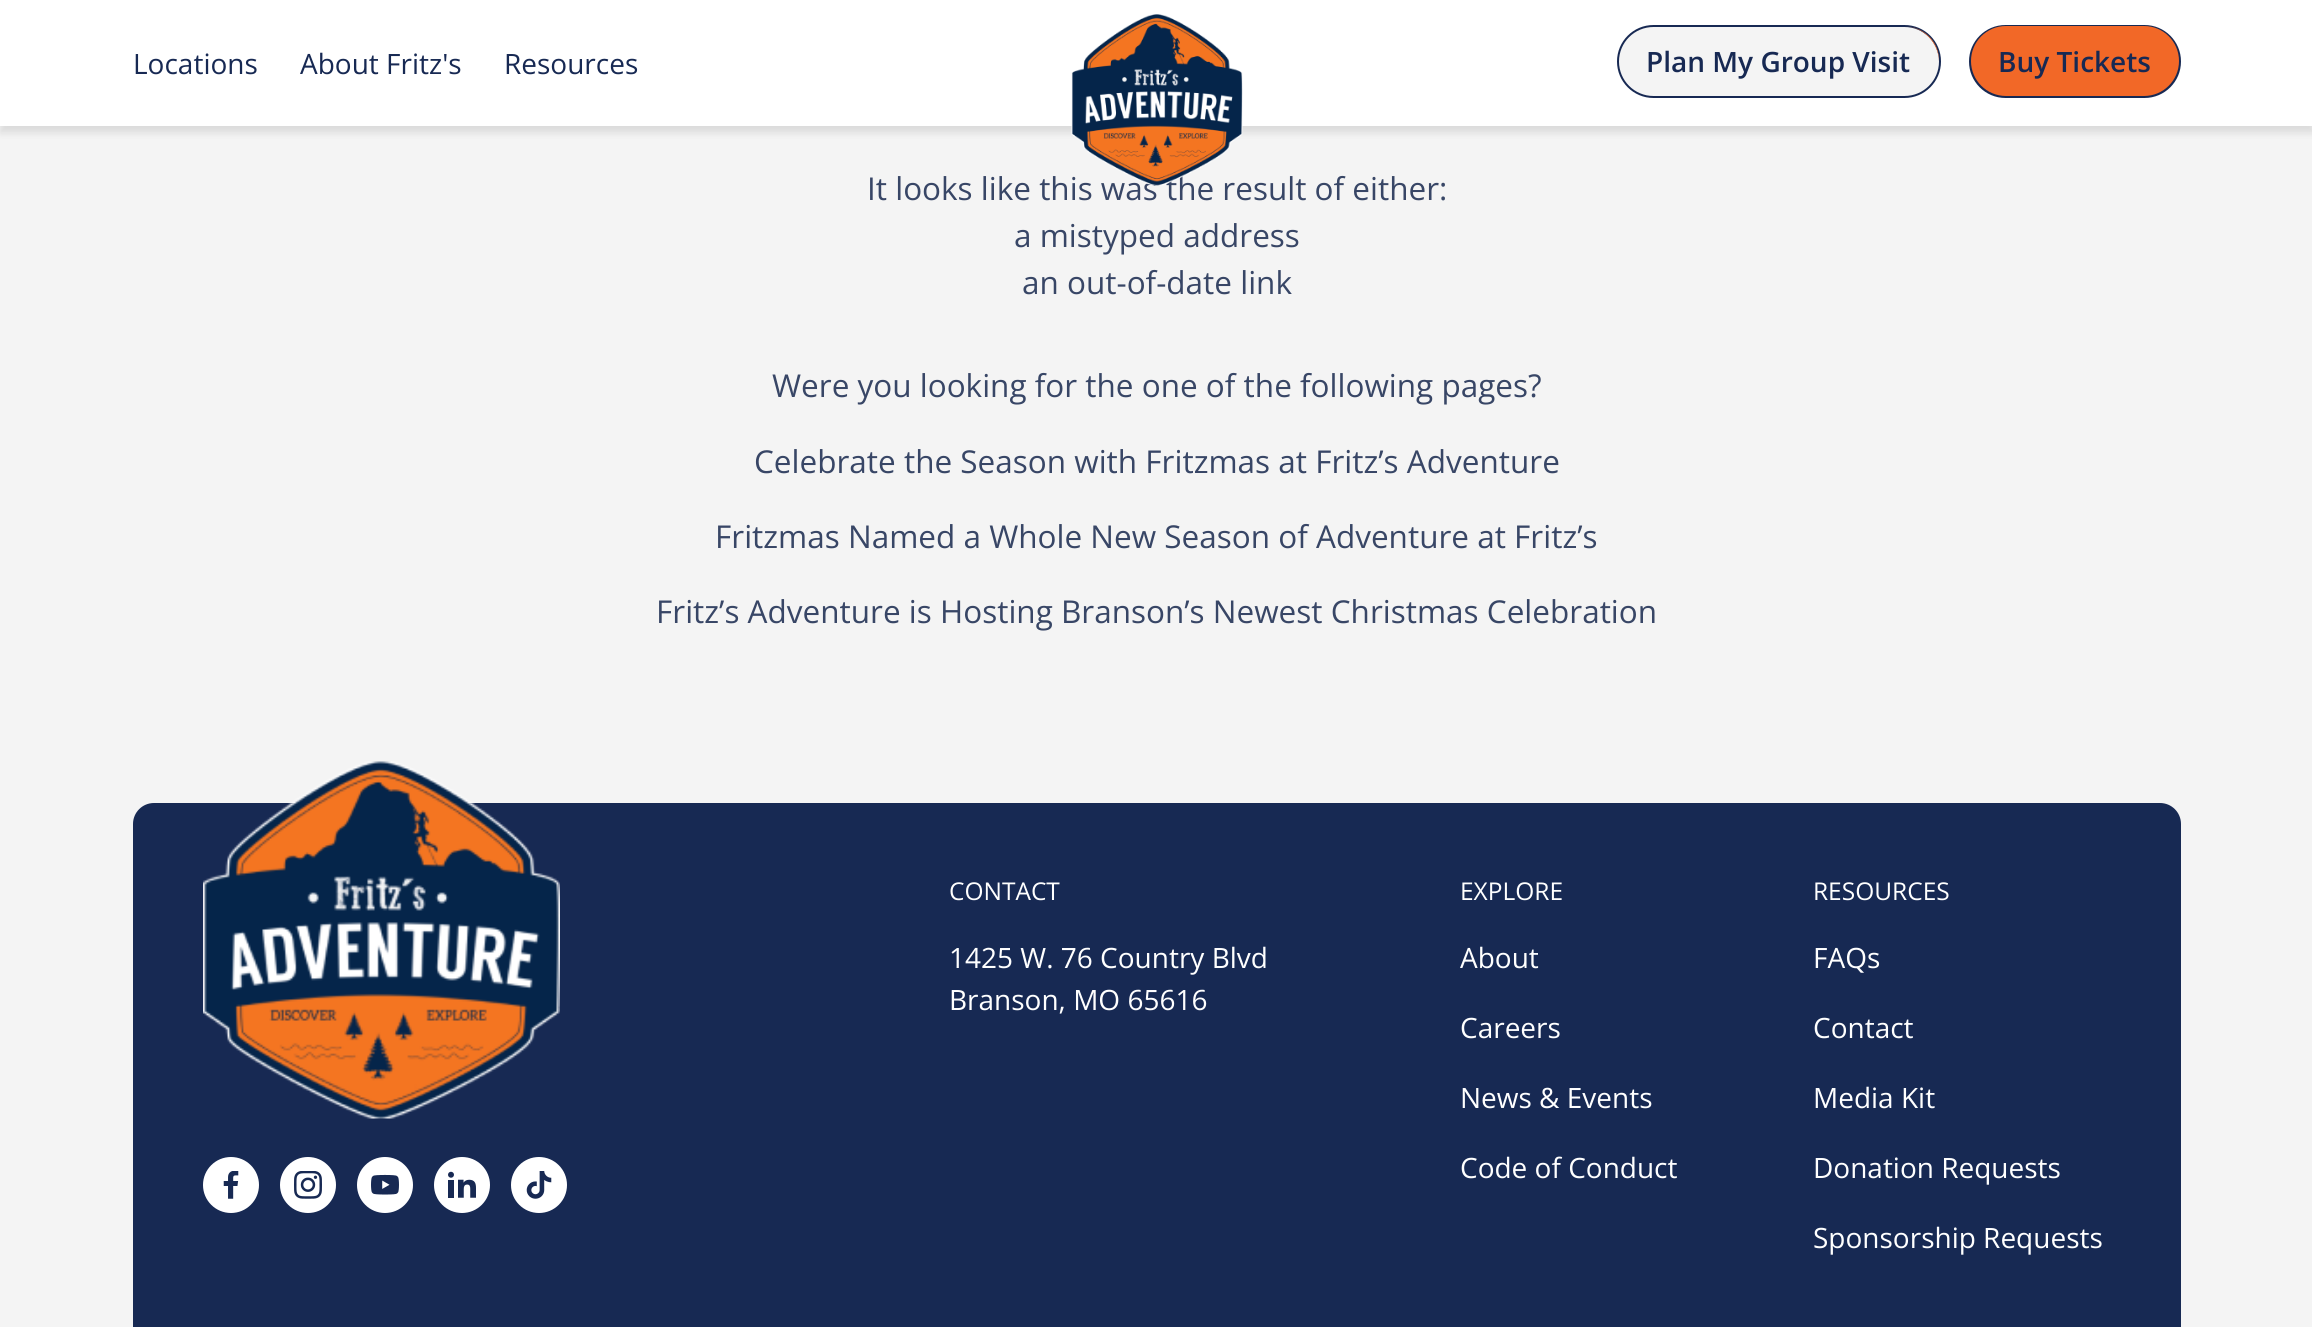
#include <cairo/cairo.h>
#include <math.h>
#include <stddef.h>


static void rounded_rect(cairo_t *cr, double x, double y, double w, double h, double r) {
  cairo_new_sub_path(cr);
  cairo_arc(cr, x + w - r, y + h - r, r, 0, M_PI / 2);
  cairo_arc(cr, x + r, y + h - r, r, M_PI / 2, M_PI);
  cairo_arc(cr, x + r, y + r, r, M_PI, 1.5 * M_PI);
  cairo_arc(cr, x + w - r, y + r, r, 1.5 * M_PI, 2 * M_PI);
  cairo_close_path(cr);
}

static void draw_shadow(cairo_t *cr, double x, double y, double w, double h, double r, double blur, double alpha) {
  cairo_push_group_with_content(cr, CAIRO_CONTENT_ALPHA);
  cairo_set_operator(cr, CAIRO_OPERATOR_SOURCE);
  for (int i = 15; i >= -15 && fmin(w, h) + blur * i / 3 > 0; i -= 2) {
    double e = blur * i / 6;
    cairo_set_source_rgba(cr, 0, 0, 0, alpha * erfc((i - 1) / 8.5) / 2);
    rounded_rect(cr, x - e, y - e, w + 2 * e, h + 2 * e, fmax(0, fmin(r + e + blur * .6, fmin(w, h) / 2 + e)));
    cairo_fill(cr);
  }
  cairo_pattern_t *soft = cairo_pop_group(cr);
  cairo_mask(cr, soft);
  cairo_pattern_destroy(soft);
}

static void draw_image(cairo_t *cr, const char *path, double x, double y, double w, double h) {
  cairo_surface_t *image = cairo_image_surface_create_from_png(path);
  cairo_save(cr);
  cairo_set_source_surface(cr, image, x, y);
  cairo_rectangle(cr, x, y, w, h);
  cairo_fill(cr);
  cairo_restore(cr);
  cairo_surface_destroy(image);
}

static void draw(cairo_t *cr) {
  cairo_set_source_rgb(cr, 244 / 255.0, 244 / 255.0, 244 / 255.0);
  cairo_paint(cr);
  cairo_set_source_rgb(cr, 0, 0, 0);
  draw_shadow(cr, 0, 7, 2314, 126, 0, 3.5, 0.1);
  cairo_set_source_rgb(cr, 1, 1, 1);
  cairo_rectangle(cr, 0, 0, 2312, 126);
  cairo_fill(cr);
  cairo_set_source_rgb(cr, 244 / 255.0, 244 / 255.0, 244 / 255.0);
  rounded_rect(cr, 1618, 26, 322, 71, 35.5);
  cairo_fill_preserve(cr);
  cairo_set_source_rgb(cr, 23 / 255.0, 41 / 255.0, 83 / 255.0);
  cairo_stroke(cr);
  cairo_set_source_rgb(cr, 242 / 255.0, 104 / 255.0, 39 / 255.0);
  cairo_new_path(cr);
  cairo_move_to(cr, 1939, 61.5);
  cairo_curve_to(cr, 1939.5, 41, 1923, 26, 1903, 26);
  cairo_curve_to(cr, 1922.5, 26, 1938.5, 42, 1939, 61.5);
  cairo_close_path(cr);
  cairo_fill(cr);
  cairo_set_source_rgb(cr, 23 / 255.0, 41 / 255.0, 83 / 255.0);
  rounded_rect(cr, 1970, 26, 210, 71, 35.5);
  cairo_fill_preserve(cr);
  cairo_stroke(cr);
  cairo_save(cr);
  rounded_rect(cr, 1971, 26, 208, 70, 35);
  cairo_clip(cr);
  cairo_set_source_rgb(cr, 242 / 255.0, 104 / 255.0, 39 / 255.0);
  rounded_rect(cr, 1969, 26, 210, 70, 35);
  cairo_fill(cr);
  cairo_restore(cr);
  rounded_rect(cr, 133, 803, 2048, 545, 21);
  cairo_fill(cr);
  draw_image(cr, "images/2.png", 203, 761, 357, 358);
  cairo_set_source_rgb(cr, 1, 1, 1);
  cairo_arc(cr, 231, 1185, 28, 0, 2 * M_PI);
  cairo_fill(cr);
  draw_image(cr, "images/3.png", 223, 1171, 16, 28);
  cairo_arc(cr, 308, 1185, 28, 0, 2 * M_PI);
  cairo_fill(cr);
  draw_image(cr, "images/4.png", 294, 1171, 28, 28);
  cairo_arc(cr, 385, 1185, 28, 0, 2 * M_PI);
  cairo_fill(cr);
  draw_image(cr, "images/5.png", 371, 1174, 28, 21);
  cairo_arc(cr, 462, 1185, 28, 0, 2 * M_PI);
  cairo_fill(cr);
  draw_image(cr, "images/6.png", 448, 1171, 28, 27);
  cairo_arc(cr, 539, 1185, 28, 0, 2 * M_PI);
  cairo_fill(cr);
  draw_image(cr, "images/7.png", 526, 1171, 26, 28);
  cairo_select_font_face(cr, "Open Sans", CAIRO_FONT_SLANT_NORMAL, CAIRO_FONT_WEIGHT_NORMAL);
  cairo_set_font_size(cr, 28);
  cairo_set_source_rgb(cr, 23 / 255.0, 41 / 255.0, 83 / 255.0);
  cairo_move_to(cr, 133, 74);
  cairo_show_text(cr, "Locations");
  cairo_move_to(cr, 300, 74);
  cairo_show_text(cr, "About Fritz's");
  cairo_move_to(cr, 504, 74);
  cairo_show_text(cr, "Resources");
  cairo_select_font_face(cr, "Open Sans SemiBold", CAIRO_FONT_SLANT_NORMAL, CAIRO_FONT_WEIGHT_NORMAL);
  cairo_move_to(cr, 1646, 72);
  cairo_show_text(cr, "Plan My Group Visit");
  cairo_move_to(cr, 1998, 72);
  cairo_show_text(cr, "Buy Tickets");
  cairo_select_font_face(cr, "Open Sans", CAIRO_FONT_SLANT_NORMAL, CAIRO_FONT_WEIGHT_NORMAL);
  cairo_set_font_size(cr, 31.5);
  cairo_set_source_rgb(cr, 56 / 255.0, 70 / 255.0, 102 / 255.0);
  cairo_move_to(cr, 867, 200);
  cairo_show_text(cr, "It looks like this was the result of either:");
  draw_image(cr, "images/1.png", 1071, 14, 172, 172);
  cairo_move_to(cr, 1014, 247);
  cairo_show_text(cr, "a mistyped address");
  cairo_move_to(cr, 1022, 294);
  cairo_show_text(cr, "an out-of-date link");
  cairo_move_to(cr, 772, 397);
  cairo_show_text(cr, "Were you looking for the one of the following pages?");
  cairo_move_to(cr, 754, 473);
  cairo_show_text(cr, "Celebrate the Season with Fritzmas at Fritz’s Adventure");
  cairo_move_to(cr, 715, 548);
  cairo_show_text(cr, "Fritzmas Named a Whole New Season of Adventure at Fritz’s");
  cairo_move_to(cr, 656, 623);
  cairo_show_text(cr, "Fritz’s Adventure is Hosting Branson’s Newest Christmas Celebration");
  cairo_set_font_size(cr, 24.5);
  cairo_set_source_rgb(cr, 1, 1, 1);
  cairo_move_to(cr, 949, 900);
  cairo_show_text(cr, "CONTACT");
  cairo_set_font_size(cr, 28);
  cairo_move_to(cr, 949, 968);
  cairo_show_text(cr, "1425 W. 76 Country Blvd");
  cairo_move_to(cr, 949, 1010);
  cairo_show_text(cr, "Branson, MO 65616");
  cairo_set_font_size(cr, 24.5);
  cairo_move_to(cr, 1460, 900);
  cairo_show_text(cr, "EXPLORE");
  cairo_set_font_size(cr, 28);
  cairo_move_to(cr, 1460, 968);
  cairo_show_text(cr, "About");
  cairo_move_to(cr, 1460, 1038);
  cairo_show_text(cr, "Careers");
  cairo_move_to(cr, 1460, 1108);
  cairo_show_text(cr, "News & Events");
  cairo_move_to(cr, 1460, 1178);
  cairo_show_text(cr, "Code of Conduct");
  cairo_set_font_size(cr, 24.5);
  cairo_move_to(cr, 1813, 900);
  cairo_show_text(cr, "RESOURCES");
  cairo_set_font_size(cr, 28);
  cairo_move_to(cr, 1813, 968);
  cairo_show_text(cr, "FAQs");
  cairo_move_to(cr, 1813, 1038);
  cairo_show_text(cr, "Contact");
  cairo_move_to(cr, 1813, 1108);
  cairo_show_text(cr, "Media Kit");
  cairo_move_to(cr, 1813, 1178);
  cairo_show_text(cr, "Donation Requests");
  cairo_move_to(cr, 1813, 1248);
  cairo_show_text(cr, "Sponsorship Requests");
}

int main(void) {
  cairo_surface_t *surface = cairo_image_surface_create(CAIRO_FORMAT_RGB24, 2312, 1327);
  cairo_t *cr = cairo_create(surface);
  cairo_font_options_t *options = cairo_font_options_create();
  cairo_font_options_set_hint_metrics(options, CAIRO_HINT_METRICS_OFF);
  cairo_font_options_set_hint_style(options, CAIRO_HINT_STYLE_NONE);
  cairo_set_font_options(cr, options);
  cairo_set_miter_limit(cr, 4);
  draw(cr);
  cairo_surface_write_to_png(surface, "out.png");
  cairo_font_options_destroy(options);
  cairo_destroy(cr);
  cairo_surface_destroy(surface);
  return 0;
}
